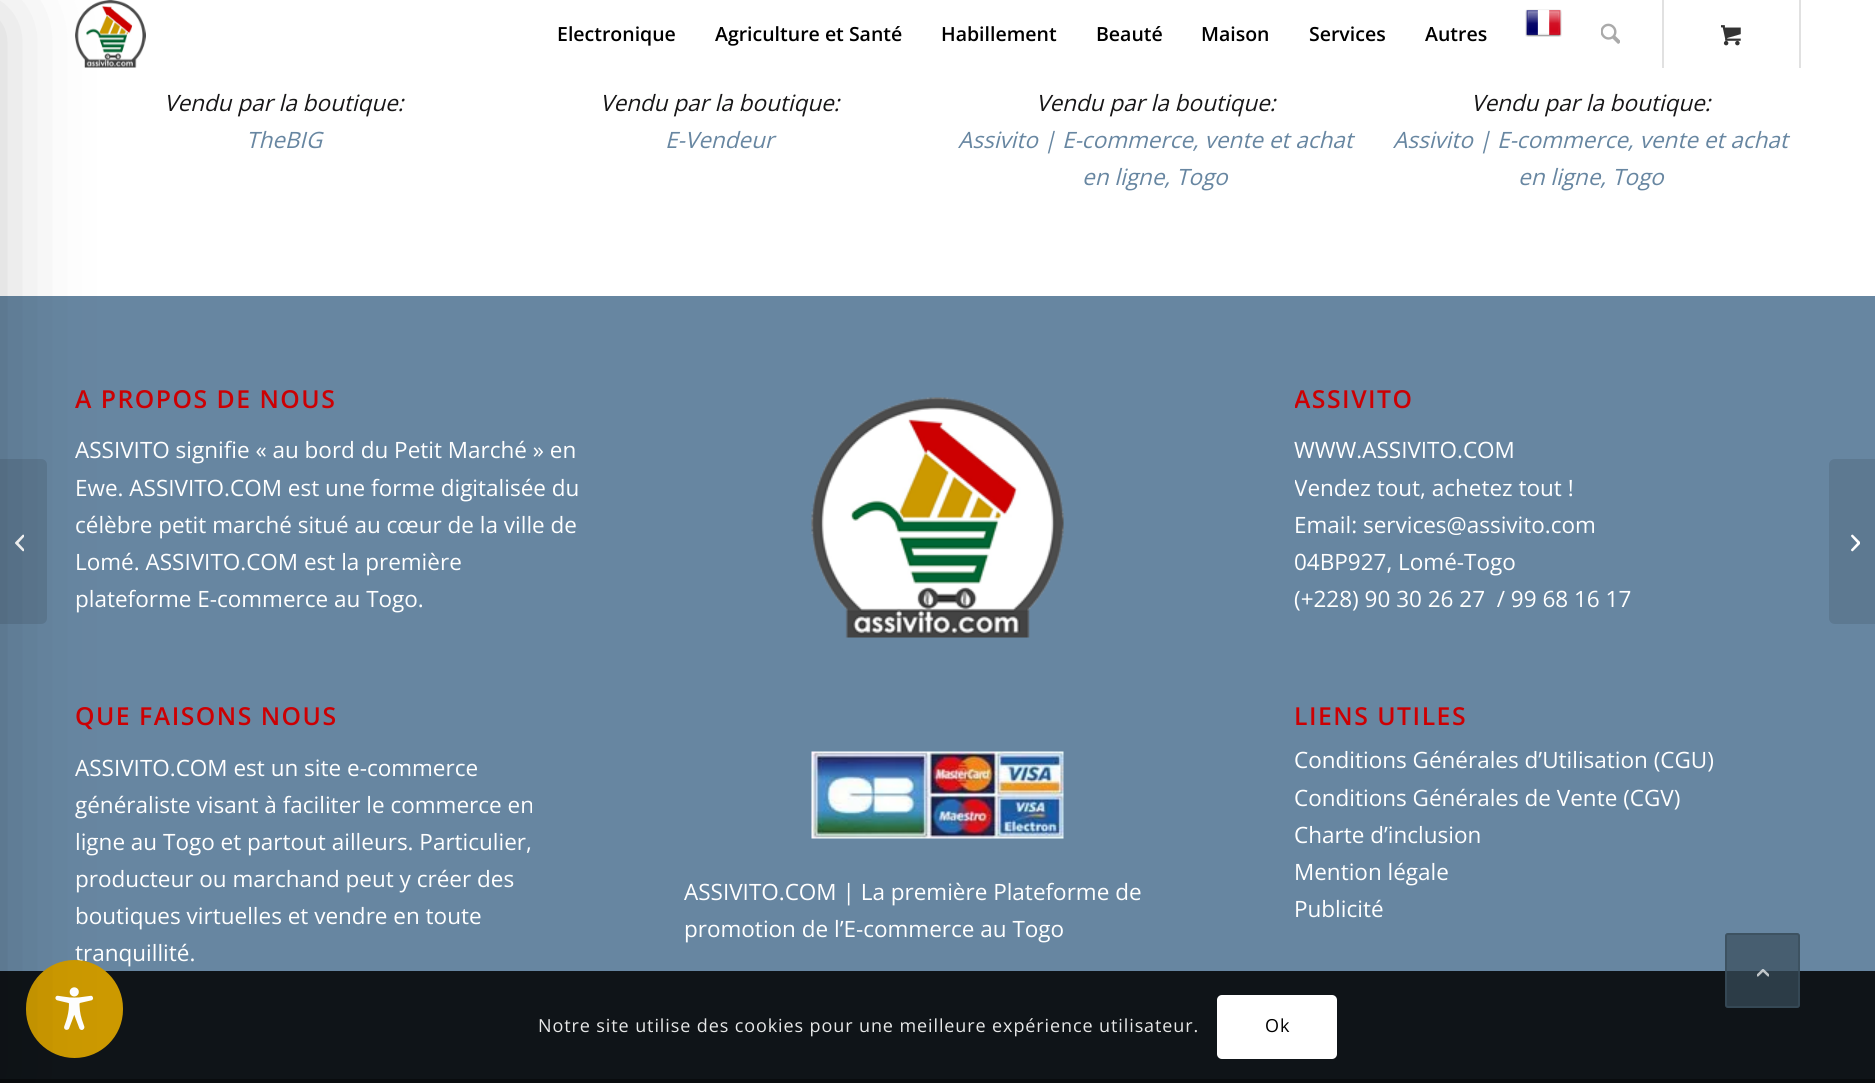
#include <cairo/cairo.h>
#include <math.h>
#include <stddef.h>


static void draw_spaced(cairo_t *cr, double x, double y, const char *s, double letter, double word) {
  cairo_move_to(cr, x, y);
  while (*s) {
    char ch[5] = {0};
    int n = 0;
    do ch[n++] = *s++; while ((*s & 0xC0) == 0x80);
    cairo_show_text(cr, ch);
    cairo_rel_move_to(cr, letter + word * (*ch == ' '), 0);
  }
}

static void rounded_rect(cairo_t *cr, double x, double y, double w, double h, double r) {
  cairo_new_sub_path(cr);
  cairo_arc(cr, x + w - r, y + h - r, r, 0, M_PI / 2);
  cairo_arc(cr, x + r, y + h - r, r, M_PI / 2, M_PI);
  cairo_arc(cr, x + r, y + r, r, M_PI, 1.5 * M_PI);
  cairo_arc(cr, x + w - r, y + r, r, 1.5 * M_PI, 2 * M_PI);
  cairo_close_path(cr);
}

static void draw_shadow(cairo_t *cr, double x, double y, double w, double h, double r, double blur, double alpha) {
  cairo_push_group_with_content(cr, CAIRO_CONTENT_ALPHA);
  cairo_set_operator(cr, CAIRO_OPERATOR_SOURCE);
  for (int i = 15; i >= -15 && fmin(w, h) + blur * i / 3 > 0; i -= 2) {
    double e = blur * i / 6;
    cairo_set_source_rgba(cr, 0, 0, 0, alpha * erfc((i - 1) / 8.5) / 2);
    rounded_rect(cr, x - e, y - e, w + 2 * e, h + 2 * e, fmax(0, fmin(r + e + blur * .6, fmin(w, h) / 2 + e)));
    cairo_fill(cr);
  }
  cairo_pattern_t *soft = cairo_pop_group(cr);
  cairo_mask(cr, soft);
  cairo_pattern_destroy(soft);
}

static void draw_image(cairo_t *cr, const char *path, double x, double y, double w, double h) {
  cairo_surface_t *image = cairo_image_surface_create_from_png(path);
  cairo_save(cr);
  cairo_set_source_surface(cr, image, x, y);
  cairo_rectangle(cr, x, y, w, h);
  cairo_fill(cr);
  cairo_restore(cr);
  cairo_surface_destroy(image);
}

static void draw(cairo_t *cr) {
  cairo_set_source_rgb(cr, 1, 1, 1);
  cairo_paint(cr);
  draw_image(cr, "images/1.png", 75, 0, 71, 68);
  draw_image(cr, "images/2.png", 1525, 9, 37, 28);
  draw_image(cr, "images/3.png", 1601, 23, 19, 21);
  cairo_set_source_rgb(cr, 225 / 255.0, 225 / 255.0, 225 / 255.0);
  cairo_rectangle(cr, 1799, 0, 2, 68);
  cairo_fill(cr);
  cairo_rectangle(cr, 1662, 0, 2, 68);
  cairo_fill(cr);
  draw_image(cr, "images/4.png", 1721, 25, 20, 21);
  cairo_set_source_rgb(cr, 103 / 255.0, 134 / 255.0, 161 / 255.0);
  cairo_rectangle(cr, 0, 296, 1875, 675);
  cairo_fill(cr);
  cairo_set_source_rgb(cr, 93 / 255.0, 121 / 255.0, 145 / 255.0);
  cairo_new_path(cr);
  cairo_move_to(cr, 0, 459);
  cairo_line_to(cr, 41, 459);
  cairo_curve_to(cr, 44.5, 459, 47, 461.5, 47, 465);
  cairo_line_to(cr, 47, 618);
  cairo_curve_to(cr, 47, 621.5, 44.5, 624, 41, 624);
  cairo_line_to(cr, 0, 624);
  cairo_close_path(cr);
  cairo_fill(cr);
  draw_image(cr, "images/5.png", 15, 534, 9, 18);
  cairo_set_source_rgb(cr, 15 / 255.0, 20 / 255.0, 24 / 255.0);
  cairo_rectangle(cr, 0, 971, 1875, 108);
  cairo_fill(cr);
  draw_image(cr, "images/6.png", 811, 397, 253, 241);
  draw_image(cr, "images/7.png", 811, 751, 253, 88);
  cairo_set_source_rgb(cr, 9 / 255.0, 12 / 255.0, 14 / 255.0);
  cairo_rectangle(cr, 0, 1079, 1875, 4);
  cairo_fill(cr);
  cairo_set_source_rgb(cr, 93 / 255.0, 121 / 255.0, 145 / 255.0);
  cairo_new_path(cr);
  cairo_move_to(cr, 1835, 459);
  cairo_line_to(cr, 1875, 459);
  cairo_line_to(cr, 1875, 624);
  cairo_line_to(cr, 1835, 624);
  cairo_curve_to(cr, 1831.5, 624, 1829, 621.5, 1829, 618);
  cairo_line_to(cr, 1829, 465);
  cairo_curve_to(cr, 1829, 461.5, 1831.5, 459, 1835, 459);
  cairo_close_path(cr);
  cairo_fill(cr);
  draw_image(cr, "images/8.png", 1851, 534, 9, 18);
  cairo_set_source_rgb(cr, 1, 1, 1);
  rounded_rect(cr, 1217, 995, 120, 64, 5);
  cairo_fill(cr);
  cairo_set_source_rgba(cr, 58 / 255.0, 77 / 255.0, 92 / 255.0, 0.7);
  rounded_rect(cr, 1725, 933, 75, 75, 3);
  cairo_fill(cr);
  rounded_rect(cr, 1726, 934, 73, 73, 2);
  cairo_stroke(cr);
  draw_image(cr, "images/10.png", 1757, 969, 12, 8);
  cairo_select_font_face(cr, "Open Sans SemiBold", CAIRO_FONT_SLANT_NORMAL, CAIRO_FONT_WEIGHT_NORMAL);
  cairo_set_font_size(cr, 19.5);
  cairo_set_source_rgb(cr, 0, 0, 0);
  cairo_move_to(cr, 557, 41);
  cairo_show_text(cr, "Electronique");
  cairo_move_to(cr, 715, 41);
  cairo_show_text(cr, "Agriculture et Santé");
  cairo_move_to(cr, 941, 41);
  cairo_show_text(cr, "Habillement");
  cairo_move_to(cr, 1096, 41);
  cairo_show_text(cr, "Beauté");
  cairo_move_to(cr, 1201, 41);
  cairo_show_text(cr, "Maison");
  cairo_move_to(cr, 1309, 41);
  cairo_show_text(cr, "Services");
  cairo_move_to(cr, 1425, 41);
  cairo_show_text(cr, "Autres");
  cairo_select_font_face(cr, "Open Sans", CAIRO_FONT_SLANT_ITALIC, CAIRO_FONT_WEIGHT_NORMAL);
  cairo_set_font_size(cr, 22.5);
  cairo_set_source_rgb(cr, 23 / 255.0, 22 / 255.0, 23 / 255.0);
  cairo_move_to(cr, 164, 111);
  cairo_show_text(cr, "Vendu par la boutique:");
  cairo_set_source_rgb(cr, 103 / 255.0, 134 / 255.0, 161 / 255.0);
  cairo_move_to(cr, 246, 148);
  cairo_show_text(cr, "TheBIG");
  cairo_set_source_rgb(cr, 23 / 255.0, 22 / 255.0, 23 / 255.0);
  cairo_move_to(cr, 600, 111);
  cairo_show_text(cr, "Vendu par la boutique:");
  cairo_set_source_rgb(cr, 103 / 255.0, 134 / 255.0, 161 / 255.0);
  cairo_move_to(cr, 665, 148);
  cairo_show_text(cr, "E-Vendeur");
  cairo_set_source_rgb(cr, 23 / 255.0, 22 / 255.0, 23 / 255.0);
  cairo_move_to(cr, 1036, 111);
  cairo_show_text(cr, "Vendu par la boutique:");
  cairo_set_source_rgb(cr, 103 / 255.0, 134 / 255.0, 161 / 255.0);
  cairo_move_to(cr, 958, 148);
  cairo_show_text(cr, "Assivito | E-commerce, vente et achat");
  cairo_move_to(cr, 1082, 185);
  cairo_show_text(cr, "en ligne, Togo");
  cairo_set_source_rgb(cr, 23 / 255.0, 22 / 255.0, 23 / 255.0);
  cairo_move_to(cr, 1471, 111);
  cairo_show_text(cr, "Vendu par la boutique:");
  cairo_set_source_rgb(cr, 103 / 255.0, 134 / 255.0, 161 / 255.0);
  cairo_move_to(cr, 1393, 148);
  cairo_show_text(cr, "Assivito | E-commerce, vente et achat");
  cairo_move_to(cr, 1518, 185);
  cairo_show_text(cr, "en ligne, Togo");
  cairo_select_font_face(cr, "Open Sans SemiBold", CAIRO_FONT_SLANT_NORMAL, CAIRO_FONT_WEIGHT_NORMAL);
  cairo_set_font_size(cr, 24.75);
  cairo_set_source_rgb(cr, 204 / 255.0, 0, 3 / 255.0);
  draw_spaced(cr, 75, 408, "A PROPOS DE NOUS", 1.5, 0);
  cairo_select_font_face(cr, "Open Sans", CAIRO_FONT_SLANT_NORMAL, CAIRO_FONT_WEIGHT_NORMAL);
  cairo_set_font_size(cr, 22.5);
  cairo_set_source_rgb(cr, 1, 1, 1);
  cairo_move_to(cr, 75, 458);
  cairo_show_text(cr, "ASSIVITO signifie « au bord du Petit Marché » en");
  cairo_move_to(cr, 75, 496);
  cairo_show_text(cr, "Ewe. ASSIVITO.COM est une forme digitalisée du");
  cairo_move_to(cr, 75, 533);
  cairo_show_text(cr, "célèbre petit marché situé au cœur de la ville de");
  cairo_move_to(cr, 75, 570);
  cairo_show_text(cr, "Lomé. ASSIVITO.COM est la première");
  cairo_move_to(cr, 75, 607);
  cairo_show_text(cr, "plateforme E-commerce au Togo.");
  cairo_select_font_face(cr, "Open Sans SemiBold", CAIRO_FONT_SLANT_NORMAL, CAIRO_FONT_WEIGHT_NORMAL);
  cairo_set_font_size(cr, 24.75);
  cairo_set_source_rgb(cr, 204 / 255.0, 0, 3 / 255.0);
  draw_spaced(cr, 75, 725, "QUE FAISONS NOUS", 1.5, 0);
  cairo_select_font_face(cr, "Open Sans", CAIRO_FONT_SLANT_NORMAL, CAIRO_FONT_WEIGHT_NORMAL);
  cairo_set_font_size(cr, 22.5);
  cairo_set_source_rgb(cr, 1, 1, 1);
  cairo_move_to(cr, 75, 776);
  cairo_show_text(cr, "ASSIVITO.COM est un site e-commerce");
  cairo_move_to(cr, 75, 813);
  cairo_show_text(cr, "généraliste visant à faciliter le commerce en");
  cairo_move_to(cr, 75, 850);
  cairo_show_text(cr, "ligne au Togo et partout ailleurs. Particulier,");
  cairo_move_to(cr, 75, 887);
  cairo_show_text(cr, "producteur ou marchand peut y créer des");
  cairo_move_to(cr, 75, 924);
  cairo_show_text(cr, "boutiques virtuelles et vendre en toute");
  cairo_move_to(cr, 75, 961);
  cairo_show_text(cr, "tranquillité.");
  cairo_move_to(cr, 684, 900);
  cairo_show_text(cr, "ASSIVITO.COM | La première Plateforme de");
  cairo_move_to(cr, 684, 937);
  cairo_show_text(cr, "promotion de l’E-commerce au Togo");
  cairo_save(cr);
  cairo_rectangle(cr, 1295, 365, 505, 271);
  cairo_clip(cr);
  cairo_select_font_face(cr, "Open Sans SemiBold", CAIRO_FONT_SLANT_NORMAL, CAIRO_FONT_WEIGHT_NORMAL);
  cairo_set_font_size(cr, 24.75);
  cairo_set_source_rgb(cr, 204 / 255.0, 0, 3 / 255.0);
  draw_spaced(cr, 1294, 408, "ASSIVITO", 1.5, 0);
  cairo_restore(cr);
  cairo_move_to(cr, 1294, 458);
  cairo_show_text(cr, "WWW.ASSIVITO.COM");
  cairo_save(cr);
  cairo_rectangle(cr, 1295, 365, 505, 271);
  cairo_clip(cr);
  cairo_move_to(cr, 1294, 496);
  cairo_show_text(cr, "Vendez tout, achetez tout !");
  cairo_restore(cr);
  cairo_move_to(cr, 1294, 533);
  cairo_show_text(cr, "Email: services@assivito.com");
  cairo_move_to(cr, 1294, 570);
  cairo_show_text(cr, "04BP927, Lomé-Togo");
  cairo_move_to(cr, 1294, 607);
  cairo_show_text(cr, "(+228) 90 30 26 27  / 99 68 16 17");
  cairo_select_font_face(cr, "Open Sans SemiBold", CAIRO_FONT_SLANT_NORMAL, CAIRO_FONT_WEIGHT_NORMAL);
  cairo_set_font_size(cr, 24.75);
  cairo_set_source_rgb(cr, 204 / 255.0, 0, 3 / 255.0);
  draw_spaced(cr, 1294, 725, "LIENS UTILES", 1.5, 0);
  cairo_select_font_face(cr, "Open Sans", CAIRO_FONT_SLANT_NORMAL, CAIRO_FONT_WEIGHT_NORMAL);
  cairo_set_font_size(cr, 22.5);
  cairo_set_source_rgb(cr, 1, 1, 1);
  cairo_move_to(cr, 1294, 768);
  cairo_show_text(cr, "Conditions Générales d’Utilisation (CGU)");
  cairo_move_to(cr, 1294, 806);
  cairo_show_text(cr, "Conditions Générales de Vente (CGV)");
  cairo_move_to(cr, 1294, 843);
  cairo_show_text(cr, "Charte d’inclusion");
  cairo_move_to(cr, 1294, 880);
  cairo_show_text(cr, "Mention légale");
  cairo_move_to(cr, 1294, 917);
  cairo_show_text(cr, "Publicité");
  cairo_set_source_rgb(cr, 204 / 255.0, 153 / 255.0, 0);
  rounded_rect(cr, 26, 960, 97, 98, 48.5);
  cairo_fill(cr);
  draw_image(cr, "images/9.png", 55, 987, 39, 43);
  cairo_set_source_rgb(cr, 0, 0, 0);
  draw_shadow(cr, -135, 15, 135, 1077, 0, 45, 0.2);
  cairo_set_font_size(cr, 18);
  cairo_set_source_rgb(cr, 231 / 255.0, 232 / 255.0, 232 / 255.0);
  draw_spaced(cr, 538, 1032, "Notre site utilise des cookies pour une meilleure expérience utilisateur.", 0.9, 0);
  cairo_set_source_rgb(cr, 0, 0, 0);
  draw_spaced(cr, 1265, 1032, "Ok", 0.9, 0);
}

int main(void) {
  cairo_surface_t *surface = cairo_image_surface_create(CAIRO_FORMAT_RGB24, 1875, 1083);
  cairo_t *cr = cairo_create(surface);
  cairo_font_options_t *options = cairo_font_options_create();
  cairo_font_options_set_hint_metrics(options, CAIRO_HINT_METRICS_OFF);
  cairo_font_options_set_hint_style(options, CAIRO_HINT_STYLE_NONE);
  cairo_set_font_options(cr, options);
  cairo_set_miter_limit(cr, 4);
  draw(cr);
  cairo_surface_write_to_png(surface, "out.png");
  cairo_font_options_destroy(options);
  cairo_destroy(cr);
  cairo_surface_destroy(surface);
  return 0;
}
